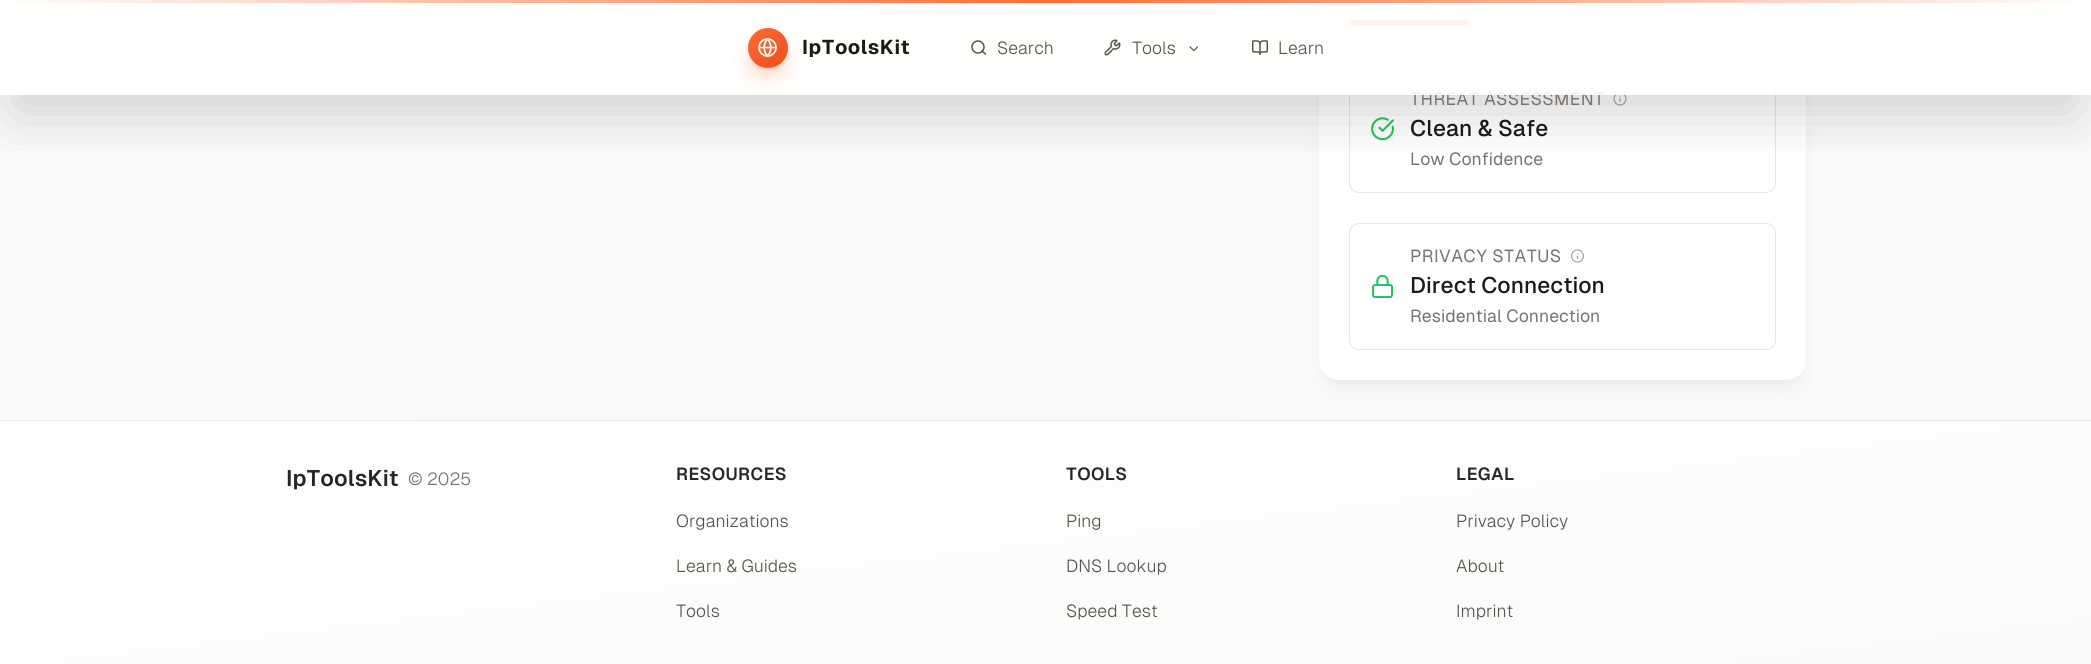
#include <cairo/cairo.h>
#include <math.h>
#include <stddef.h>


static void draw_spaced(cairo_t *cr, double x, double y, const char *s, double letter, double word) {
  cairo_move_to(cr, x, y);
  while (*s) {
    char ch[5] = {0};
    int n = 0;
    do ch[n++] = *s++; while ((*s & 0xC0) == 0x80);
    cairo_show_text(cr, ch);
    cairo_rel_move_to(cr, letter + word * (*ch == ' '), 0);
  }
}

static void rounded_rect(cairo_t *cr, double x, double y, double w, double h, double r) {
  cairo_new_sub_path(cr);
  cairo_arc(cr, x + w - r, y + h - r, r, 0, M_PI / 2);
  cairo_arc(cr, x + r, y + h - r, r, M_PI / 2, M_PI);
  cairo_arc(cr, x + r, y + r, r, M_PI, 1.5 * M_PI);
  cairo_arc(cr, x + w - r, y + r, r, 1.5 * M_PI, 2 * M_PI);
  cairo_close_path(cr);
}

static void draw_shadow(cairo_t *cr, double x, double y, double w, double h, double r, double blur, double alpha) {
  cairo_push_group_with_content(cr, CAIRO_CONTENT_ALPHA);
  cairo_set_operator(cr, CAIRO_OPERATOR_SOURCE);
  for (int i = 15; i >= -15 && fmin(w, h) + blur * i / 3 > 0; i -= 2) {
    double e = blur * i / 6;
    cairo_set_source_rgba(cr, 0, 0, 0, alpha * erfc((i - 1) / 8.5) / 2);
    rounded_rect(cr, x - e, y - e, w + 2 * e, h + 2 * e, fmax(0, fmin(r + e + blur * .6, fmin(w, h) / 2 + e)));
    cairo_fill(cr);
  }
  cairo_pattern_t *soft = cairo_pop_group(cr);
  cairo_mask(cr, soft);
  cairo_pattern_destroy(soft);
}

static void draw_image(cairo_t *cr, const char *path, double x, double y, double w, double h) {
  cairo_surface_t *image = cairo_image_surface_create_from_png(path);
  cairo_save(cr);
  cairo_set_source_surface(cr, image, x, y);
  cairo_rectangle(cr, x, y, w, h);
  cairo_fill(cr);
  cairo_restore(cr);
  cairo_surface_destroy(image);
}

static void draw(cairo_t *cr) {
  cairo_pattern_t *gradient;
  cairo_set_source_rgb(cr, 250 / 255.0, 250 / 255.0, 249 / 255.0);
  cairo_paint(cr);
  cairo_set_source_rgb(cr, 28 / 255.0, 25 / 255.0, 23 / 255.0);
  draw_shadow(cr, 1324, -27, 477, 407, 15, 4, 0.05);
  draw_shadow(cr, 1323, -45, 480, 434, 16, 9.5, 0.05);
  cairo_set_source_rgb(cr, 1, 1, 1);
  rounded_rect(cr, 1319, -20, 487, 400, 20);
  cairo_fill(cr);
  gradient = cairo_pattern_create_linear(1806, -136, 1806, 5.4);
  cairo_pattern_add_color_stop_rgba(gradient, 0, 1, 248 / 255.0, 245 / 255.0, 1);
  cairo_pattern_add_color_stop_rgba(gradient, 1, 1, 249 / 255.0, 247 / 255.0, 1);
  cairo_set_source(cr, gradient);
  cairo_pattern_destroy(gradient);
  cairo_new_path(cr);
  cairo_move_to(cr, 1806, 5);
  cairo_line_to(cr, 1806, -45);
  cairo_curve_to(cr, 1806, -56, 1797, -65, 1786, -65);
  cairo_line_to(cr, 1735, -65);
  cairo_close_path(cr);
  cairo_fill(cr);
  gradient = cairo_pattern_create_linear(1349, 23, 1469, 22);
  cairo_pattern_add_color_stop_rgba(gradient, 0, 1, 107 / 255.0, 53 / 255.0, 1);
  cairo_pattern_add_color_stop_rgba(gradient, 0.5, 1, 134 / 255.0, 89 / 255.0, 1);
  cairo_pattern_add_color_stop_rgba(gradient, 1, 1, 107 / 255.0, 53 / 255.0, 1);
  cairo_set_source(cr, gradient);
  cairo_pattern_destroy(gradient);
  rounded_rect(cr, 1349, 20, 120, 5, 2.5);
  cairo_fill(cr);
  rounded_rect(cr, 1349.5, 65.5, 426, 127, 9.5);
  cairo_set_source_rgb(cr, 231 / 255.0, 229 / 255.0, 228 / 255.0);
  cairo_set_line_width(cr, 1);
  cairo_stroke(cr);
  draw_image(cr, "images/4.png", 1371, 117, 23, 24);
  draw_image(cr, "images/5.png", 1613, 92, 14, 14);
  cairo_save(cr);
  cairo_rectangle(cr, 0, 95, 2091, 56);
  cairo_clip(cr);
  cairo_set_source_rgb(cr, 28 / 255.0, 25 / 255.0, 23 / 255.0);
  draw_shadow(cr, 15, 46, 2061, 65, 0, 31, 0.2);
  cairo_restore(cr);
  gradient = cairo_pattern_create_linear(0, 1.3, 2091, 1.2);
  cairo_pattern_add_color_stop_rgba(gradient, 0, 1, 1, 1, 1);
  cairo_pattern_add_color_stop_rgba(gradient, 0.5, 1, 107 / 255.0, 53 / 255.0, 1);
  cairo_pattern_add_color_stop_rgba(gradient, 1, 1, 1, 1, 1);
  cairo_set_source(cr, gradient);
  cairo_pattern_destroy(gradient);
  cairo_rectangle(cr, 0, 0, 2091, 3);
  cairo_fill(cr);
  rounded_rect(cr, 1349.5, 223.5, 426, 126, 9.5);
  cairo_set_source_rgb(cr, 231 / 255.0, 229 / 255.0, 228 / 255.0);
  cairo_stroke(cr);
  draw_image(cr, "images/6.png", 1372, 274, 21, 24);
  draw_image(cr, "images/7.png", 1570, 249, 15, 14);
  gradient = cairo_pattern_create_linear(1016, 300, 1075, 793);
  cairo_pattern_add_color_stop_rgba(gradient, 0, 1, 1, 1, 1);
  cairo_pattern_add_color_stop_rgba(gradient, 1, 250 / 255.0, 250 / 255.0, 249 / 255.0, 1);
  cairo_set_source(cr, gradient);
  cairo_pattern_destroy(gradient);
  cairo_rectangle(cr, 0, 421, 2091, 243);
  cairo_fill(cr);
  cairo_set_source_rgb(cr, 231 / 255.0, 229 / 255.0, 228 / 255.0);
  cairo_rectangle(cr, 0, 420, 2091, 1);
  cairo_fill(cr);
  cairo_select_font_face(cr, "Geist", CAIRO_FONT_SLANT_NORMAL, CAIRO_FONT_WEIGHT_NORMAL);
  cairo_set_font_size(cr, 17.5);
  cairo_set_source_rgb(cr, 120 / 255.0, 113 / 255.0, 108 / 255.0);
  draw_spaced(cr, 1410, 105, "THREAT ASSESSMENT", 0.4, 0);
  cairo_set_source_rgba(cr, 1, 1, 1, 0.9);
  cairo_rectangle(cr, 0, 3, 2091, 92);
  cairo_fill(cr);
  cairo_new_path(cr);
  cairo_move_to(cr, 1190, 47);
  cairo_line_to(cr, 1194, 50.5);
  cairo_line_to(cr, 1197.5, 47);
  cairo_set_source_rgb(cr, 87 / 255.0, 83 / 255.0, 78 / 255.0);
  cairo_set_line_width(cr, 1.2);
  cairo_set_line_cap(cr, CAIRO_LINE_CAP_ROUND);
  cairo_set_line_join(cr, CAIRO_LINE_JOIN_ROUND);
  cairo_stroke(cr);
  draw_image(cr, "images/2.png", 1104, 39, 17, 17);
  cairo_select_font_face(cr, "Geist Light", CAIRO_FONT_SLANT_NORMAL, CAIRO_FONT_WEIGHT_NORMAL);
  cairo_move_to(cr, 1132, 54);
  cairo_show_text(cr, "Tools");
  draw_image(cr, "images/3.png", 1251, 40, 18, 15);
  cairo_new_path(cr);
  cairo_move_to(cr, 985.5, 54);
  cairo_line_to(cr, 982, 51);
  cairo_set_line_width(cr, 1.5);
  cairo_stroke(cr);
  cairo_arc(cr, 978, 47, 6, 0, 2 * M_PI);
  cairo_set_line_cap(cr, CAIRO_LINE_CAP_BUTT);
  cairo_set_line_join(cr, CAIRO_LINE_JOIN_MITER);
  cairo_stroke(cr);
  cairo_set_source_rgb(cr, 1, 107 / 255.0, 53 / 255.0);
  draw_shadow(cr, 751, 44, 33, 32, 16, 9.5, 0.25);
  draw_shadow(cr, 753, 38, 30, 30, 15, 4, 0.25);
  gradient = cairo_pattern_create_linear(748, 28, 788, 68);
  cairo_pattern_add_color_stop_rgba(gradient, 0, 1, 107 / 255.0, 53 / 255.0, 1);
  cairo_pattern_add_color_stop_rgba(gradient, 1, 237 / 255.0, 79 / 255.0, 26 / 255.0, 1);
  cairo_set_source(cr, gradient);
  cairo_pattern_destroy(gradient);
  cairo_arc(cr, 768, 48, 20, 0, 2 * M_PI);
  cairo_fill(cr);
  draw_image(cr, "images/1.png", 758, 38, 19, 19);
  cairo_set_source_rgb(cr, 87 / 255.0, 83 / 255.0, 78 / 255.0);
  cairo_move_to(cr, 1278, 54);
  cairo_show_text(cr, "Learn");
  cairo_move_to(cr, 997, 54);
  cairo_show_text(cr, "Search");
  cairo_select_font_face(cr, "Geist", CAIRO_FONT_SLANT_NORMAL, CAIRO_FONT_WEIGHT_BOLD);
  cairo_set_font_size(cr, 20);
  cairo_set_source_rgb(cr, 28 / 255.0, 25 / 255.0, 23 / 255.0);
  draw_spaced(cr, 802, 54, "IpToolsKit", 0.5, 0);
  cairo_select_font_face(cr, "Geist Medium", CAIRO_FONT_SLANT_NORMAL, CAIRO_FONT_WEIGHT_NORMAL);
  cairo_set_font_size(cr, 22.5);
  cairo_move_to(cr, 1410, 136);
  cairo_show_text(cr, "Clean & Safe");
  cairo_select_font_face(cr, "Geist", CAIRO_FONT_SLANT_NORMAL, CAIRO_FONT_WEIGHT_NORMAL);
  cairo_set_font_size(cr, 17.5);
  cairo_set_source_rgb(cr, 120 / 255.0, 113 / 255.0, 108 / 255.0);
  cairo_move_to(cr, 1410, 165);
  cairo_show_text(cr, "Low Confidence");
  draw_spaced(cr, 1410, 262, "PRIVACY STATUS", 0.4, 0);
  cairo_select_font_face(cr, "Geist Medium", CAIRO_FONT_SLANT_NORMAL, CAIRO_FONT_WEIGHT_NORMAL);
  cairo_set_font_size(cr, 22.5);
  cairo_set_source_rgb(cr, 28 / 255.0, 25 / 255.0, 23 / 255.0);
  cairo_move_to(cr, 1410, 293);
  cairo_show_text(cr, "Direct Connection");
  cairo_select_font_face(cr, "Geist", CAIRO_FONT_SLANT_NORMAL, CAIRO_FONT_WEIGHT_NORMAL);
  cairo_set_font_size(cr, 17.5);
  cairo_set_source_rgb(cr, 120 / 255.0, 113 / 255.0, 108 / 255.0);
  cairo_move_to(cr, 1410, 322);
  cairo_show_text(cr, "Residential Connection");
  cairo_select_font_face(cr, "Geist SemiBold", CAIRO_FONT_SLANT_NORMAL, CAIRO_FONT_WEIGHT_NORMAL);
  cairo_set_font_size(cr, 22.5);
  cairo_set_source_rgb(cr, 41 / 255.0, 37 / 255.0, 36 / 255.0);
  cairo_move_to(cr, 286, 486);
  cairo_show_text(cr, "IpToolsKit");
  cairo_select_font_face(cr, "Geist Light", CAIRO_FONT_SLANT_NORMAL, CAIRO_FONT_WEIGHT_NORMAL);
  cairo_set_font_size(cr, 17.5);
  cairo_set_source_rgb(cr, 120 / 255.0, 113 / 255.0, 108 / 255.0);
  cairo_move_to(cr, 408, 485);
  cairo_show_text(cr, "© 2025");
  cairo_select_font_face(cr, "Geist SemiBold", CAIRO_FONT_SLANT_NORMAL, CAIRO_FONT_WEIGHT_NORMAL);
  cairo_set_source_rgb(cr, 41 / 255.0, 37 / 255.0, 36 / 255.0);
  draw_spaced(cr, 676, 480, "RESOURCES", 0.4, 0);
  cairo_select_font_face(cr, "Geist Light", CAIRO_FONT_SLANT_NORMAL, CAIRO_FONT_WEIGHT_NORMAL);
  cairo_set_source_rgb(cr, 87 / 255.0, 83 / 255.0, 78 / 255.0);
  cairo_move_to(cr, 676, 527);
  cairo_show_text(cr, "Organizations");
  cairo_move_to(cr, 676, 572);
  cairo_show_text(cr, "Learn & Guides");
  cairo_move_to(cr, 676, 617);
  cairo_show_text(cr, "Tools");
  cairo_select_font_face(cr, "Geist SemiBold", CAIRO_FONT_SLANT_NORMAL, CAIRO_FONT_WEIGHT_NORMAL);
  cairo_set_source_rgb(cr, 41 / 255.0, 37 / 255.0, 36 / 255.0);
  draw_spaced(cr, 1066, 480, "TOOLS", 0.4, 0);
  cairo_select_font_face(cr, "Geist Light", CAIRO_FONT_SLANT_NORMAL, CAIRO_FONT_WEIGHT_NORMAL);
  cairo_set_source_rgb(cr, 87 / 255.0, 83 / 255.0, 78 / 255.0);
  cairo_move_to(cr, 1066, 527);
  cairo_show_text(cr, "Ping");
  cairo_move_to(cr, 1066, 572);
  cairo_show_text(cr, "DNS Lookup");
  cairo_move_to(cr, 1066, 617);
  cairo_show_text(cr, "Speed Test");
  cairo_select_font_face(cr, "Geist SemiBold", CAIRO_FONT_SLANT_NORMAL, CAIRO_FONT_WEIGHT_NORMAL);
  cairo_set_source_rgb(cr, 41 / 255.0, 37 / 255.0, 36 / 255.0);
  draw_spaced(cr, 1456, 480, "LEGAL", 0.4, 0);
  cairo_select_font_face(cr, "Geist Light", CAIRO_FONT_SLANT_NORMAL, CAIRO_FONT_WEIGHT_NORMAL);
  cairo_set_source_rgb(cr, 87 / 255.0, 83 / 255.0, 78 / 255.0);
  cairo_move_to(cr, 1456, 527);
  cairo_show_text(cr, "Privacy Policy");
  cairo_move_to(cr, 1456, 572);
  cairo_show_text(cr, "About");
  cairo_move_to(cr, 1456, 617);
  cairo_show_text(cr, "Imprint");
}

int main(void) {
  cairo_surface_t *surface = cairo_image_surface_create(CAIRO_FORMAT_RGB24, 2091, 664);
  cairo_t *cr = cairo_create(surface);
  cairo_font_options_t *options = cairo_font_options_create();
  cairo_font_options_set_hint_metrics(options, CAIRO_HINT_METRICS_OFF);
  cairo_font_options_set_hint_style(options, CAIRO_HINT_STYLE_NONE);
  cairo_set_font_options(cr, options);
  cairo_set_miter_limit(cr, 4);
  draw(cr);
  cairo_surface_write_to_png(surface, "out.png");
  cairo_font_options_destroy(options);
  cairo_destroy(cr);
  cairo_surface_destroy(surface);
  return 0;
}
